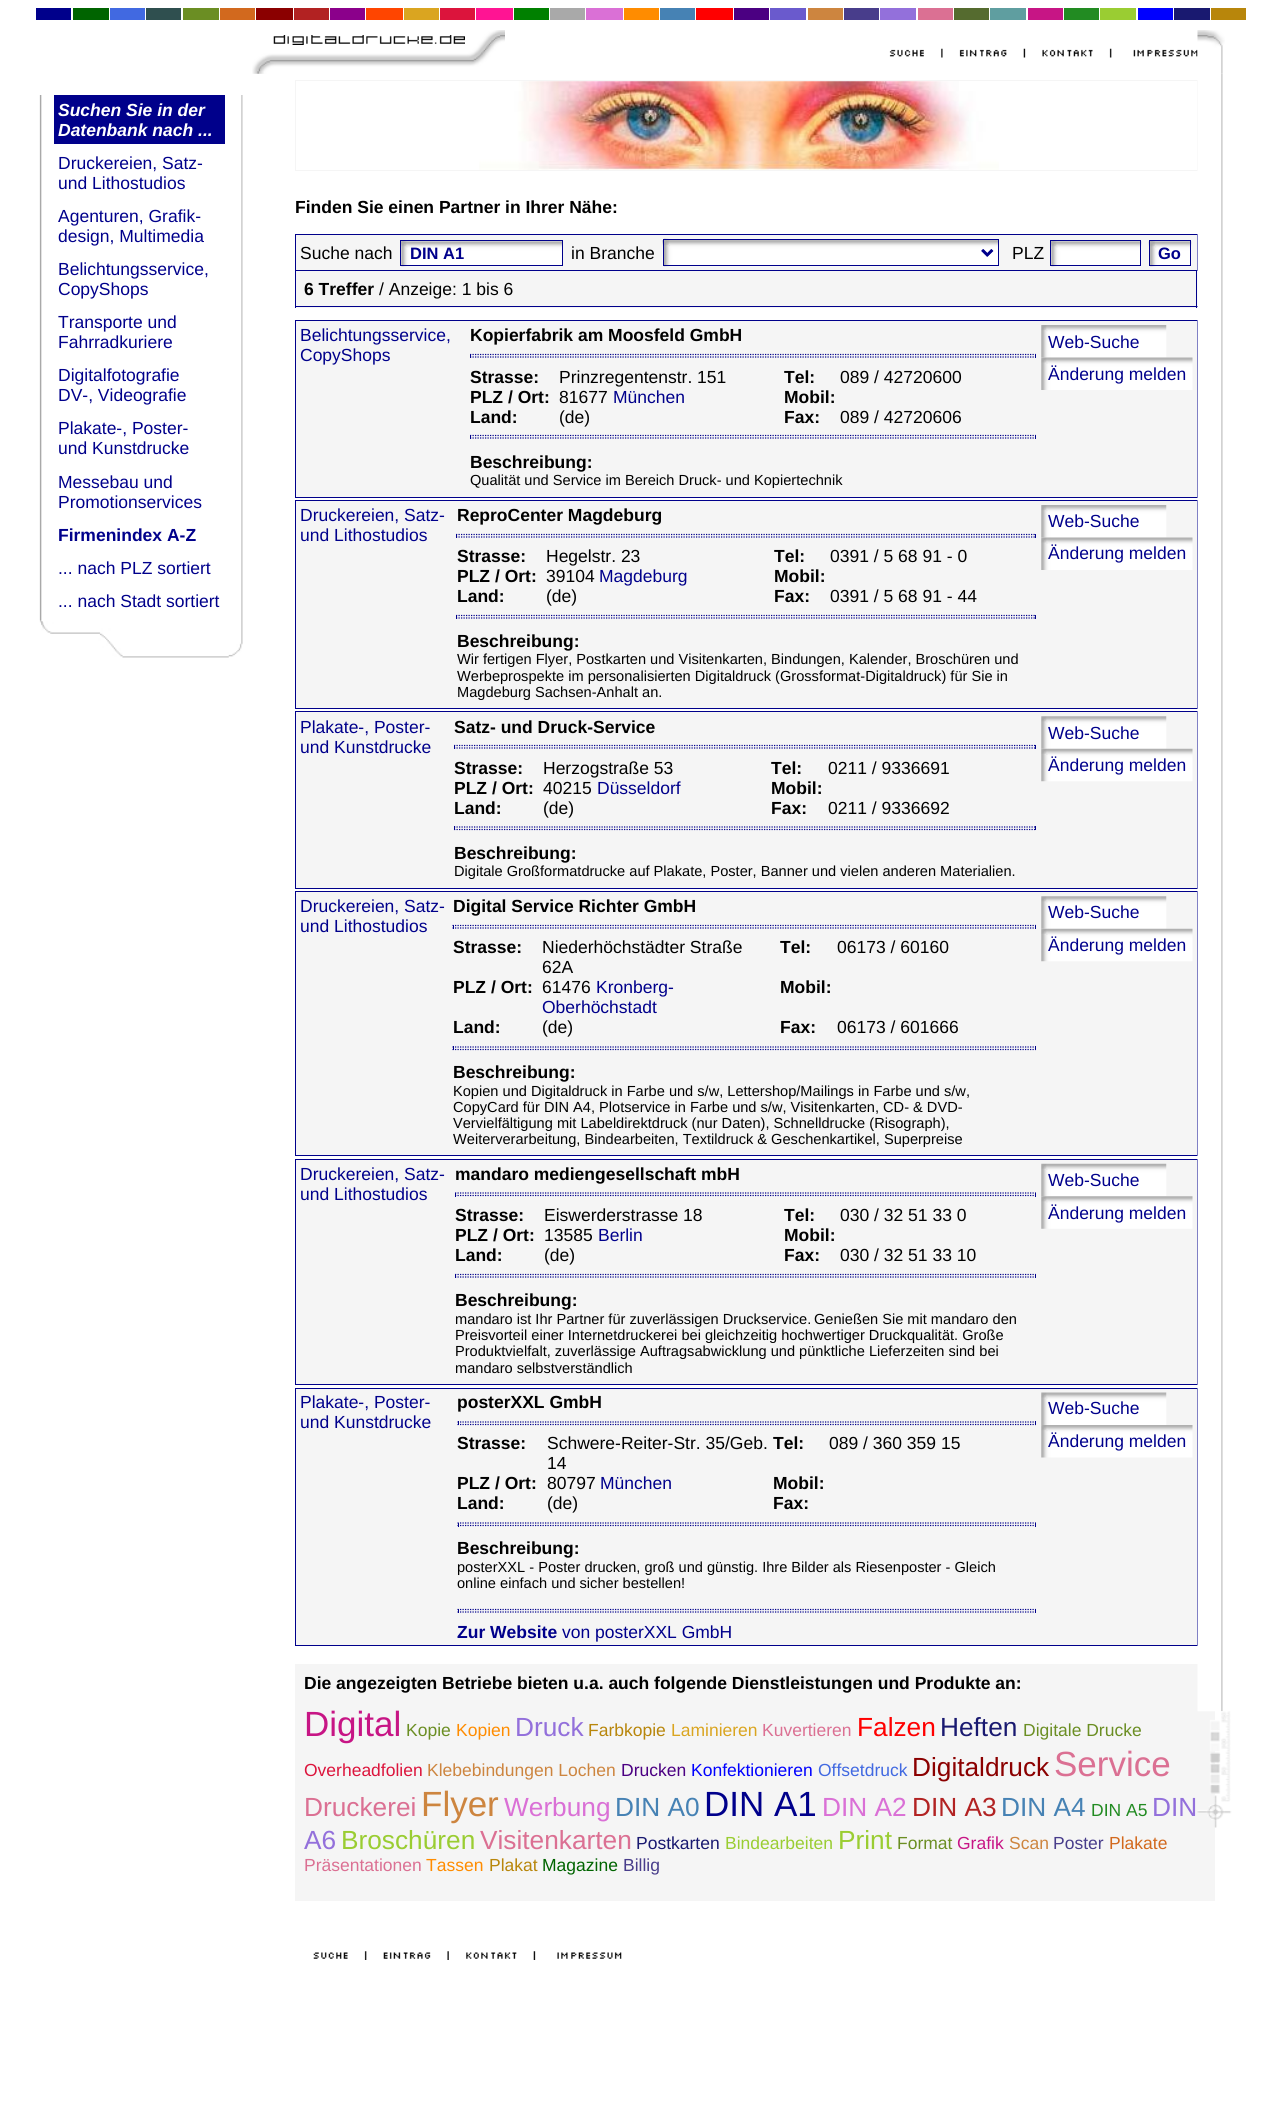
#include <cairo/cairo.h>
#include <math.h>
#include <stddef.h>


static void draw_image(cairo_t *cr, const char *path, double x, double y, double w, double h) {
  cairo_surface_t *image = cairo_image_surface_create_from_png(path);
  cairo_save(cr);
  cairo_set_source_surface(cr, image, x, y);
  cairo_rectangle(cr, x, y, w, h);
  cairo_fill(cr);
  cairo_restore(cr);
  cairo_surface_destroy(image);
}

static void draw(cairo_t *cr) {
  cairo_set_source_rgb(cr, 1, 1, 1);
  cairo_paint(cr);
  cairo_set_source_rgb(cr, 0, 0, 139 / 255.0);
  cairo_rectangle(cr, 36, 8, 35, 12);
  cairo_fill(cr);
  cairo_set_source_rgb(cr, 0, 100 / 255.0, 0);
  cairo_rectangle(cr, 73, 8, 36, 12);
  cairo_fill(cr);
  cairo_set_source_rgb(cr, 65 / 255.0, 105 / 255.0, 225 / 255.0);
  cairo_rectangle(cr, 110, 8, 35, 12);
  cairo_fill(cr);
  cairo_set_source_rgb(cr, 47 / 255.0, 79 / 255.0, 79 / 255.0);
  cairo_rectangle(cr, 146, 8, 35, 12);
  cairo_fill(cr);
  cairo_set_source_rgb(cr, 107 / 255.0, 142 / 255.0, 35 / 255.0);
  cairo_rectangle(cr, 183, 8, 36, 12);
  cairo_fill(cr);
  cairo_set_source_rgb(cr, 210 / 255.0, 105 / 255.0, 30 / 255.0);
  cairo_rectangle(cr, 220, 8, 35, 12);
  cairo_fill(cr);
  cairo_set_source_rgb(cr, 139 / 255.0, 0, 0);
  cairo_rectangle(cr, 256, 8, 37, 12);
  cairo_fill(cr);
  cairo_set_source_rgb(cr, 178 / 255.0, 34 / 255.0, 34 / 255.0);
  cairo_rectangle(cr, 294, 8, 35, 12);
  cairo_fill(cr);
  cairo_set_source_rgb(cr, 139 / 255.0, 0, 139 / 255.0);
  cairo_rectangle(cr, 330, 8, 35, 12);
  cairo_fill(cr);
  cairo_set_source_rgb(cr, 1, 69 / 255.0, 0);
  cairo_rectangle(cr, 366, 8, 37, 12);
  cairo_fill(cr);
  cairo_set_source_rgb(cr, 218 / 255.0, 165 / 255.0, 32 / 255.0);
  cairo_rectangle(cr, 404, 8, 35, 12);
  cairo_fill(cr);
  cairo_set_source_rgb(cr, 220 / 255.0, 20 / 255.0, 60 / 255.0);
  cairo_rectangle(cr, 440, 8, 35, 12);
  cairo_fill(cr);
  cairo_set_source_rgb(cr, 1, 20 / 255.0, 147 / 255.0);
  cairo_rectangle(cr, 476, 8, 37, 12);
  cairo_fill(cr);
  cairo_set_source_rgb(cr, 0, 128 / 255.0, 0);
  cairo_rectangle(cr, 514, 8, 35, 12);
  cairo_fill(cr);
  cairo_set_source_rgb(cr, 169 / 255.0, 169 / 255.0, 169 / 255.0);
  cairo_rectangle(cr, 550, 8, 35, 12);
  cairo_fill(cr);
  cairo_set_source_rgb(cr, 218 / 255.0, 112 / 255.0, 214 / 255.0);
  cairo_rectangle(cr, 586, 8, 37, 12);
  cairo_fill(cr);
  cairo_set_source_rgb(cr, 1, 140 / 255.0, 0);
  cairo_rectangle(cr, 624, 8, 35, 12);
  cairo_fill(cr);
  cairo_set_source_rgb(cr, 70 / 255.0, 130 / 255.0, 180 / 255.0);
  cairo_rectangle(cr, 660, 8, 35, 12);
  cairo_fill(cr);
  cairo_set_source_rgb(cr, 1, 0, 0);
  cairo_rectangle(cr, 696, 8, 37, 12);
  cairo_fill(cr);
  cairo_set_source_rgb(cr, 75 / 255.0, 0, 130 / 255.0);
  cairo_rectangle(cr, 734, 8, 35, 12);
  cairo_fill(cr);
  cairo_set_source_rgb(cr, 106 / 255.0, 90 / 255.0, 205 / 255.0);
  cairo_rectangle(cr, 770, 8, 36, 12);
  cairo_fill(cr);
  cairo_set_source_rgb(cr, 205 / 255.0, 133 / 255.0, 63 / 255.0);
  cairo_rectangle(cr, 808, 8, 35, 12);
  cairo_fill(cr);
  cairo_set_source_rgb(cr, 72 / 255.0, 61 / 255.0, 139 / 255.0);
  cairo_rectangle(cr, 844, 8, 35, 12);
  cairo_fill(cr);
  cairo_set_source_rgb(cr, 147 / 255.0, 112 / 255.0, 219 / 255.0);
  cairo_rectangle(cr, 880, 8, 36, 12);
  cairo_fill(cr);
  cairo_set_source_rgb(cr, 219 / 255.0, 112 / 255.0, 147 / 255.0);
  cairo_rectangle(cr, 918, 8, 35, 12);
  cairo_fill(cr);
  cairo_set_source_rgb(cr, 85 / 255.0, 107 / 255.0, 47 / 255.0);
  cairo_rectangle(cr, 954, 8, 35, 12);
  cairo_fill(cr);
  cairo_set_source_rgb(cr, 95 / 255.0, 158 / 255.0, 160 / 255.0);
  cairo_rectangle(cr, 990, 8, 36, 12);
  cairo_fill(cr);
  cairo_set_source_rgb(cr, 199 / 255.0, 21 / 255.0, 133 / 255.0);
  cairo_rectangle(cr, 1028, 8, 35, 12);
  cairo_fill(cr);
  cairo_set_source_rgb(cr, 34 / 255.0, 139 / 255.0, 34 / 255.0);
  cairo_rectangle(cr, 1064, 8, 35, 12);
  cairo_fill(cr);
  cairo_set_source_rgb(cr, 154 / 255.0, 205 / 255.0, 50 / 255.0);
  cairo_rectangle(cr, 1100, 8, 36, 12);
  cairo_fill(cr);
  cairo_set_source_rgb(cr, 0, 0, 1);
  cairo_rectangle(cr, 1138, 8, 35, 12);
  cairo_fill(cr);
  cairo_set_source_rgb(cr, 25 / 255.0, 25 / 255.0, 112 / 255.0);
  cairo_rectangle(cr, 1174, 8, 36, 12);
  cairo_fill(cr);
  cairo_set_source_rgb(cr, 184 / 255.0, 134 / 255.0, 11 / 255.0);
  cairo_rectangle(cr, 1211, 8, 35, 12);
  cairo_fill(cr);
  draw_image(cr, "images/1.png", 39, 95, 204, 525);
  cairo_set_source_rgb(cr, 0, 0, 139 / 255.0);
  cairo_rectangle(cr, 54, 95, 171, 49);
  cairo_fill(cr);
  draw_image(cr, "images/2.png", 39, 620, 204, 38);
  draw_image(cr, "images/3.png", 252, 30, 253, 44);
  draw_image(cr, "images/4.png", 273, 35, 192, 10);
  draw_image(cr, "images/5.png", 889, 48, 309, 10);
  cairo_rectangle(cr, 295.5, 80.5, 902, 90);
  cairo_set_source_rgb(cr, 245 / 255.0, 245 / 255.0, 245 / 255.0);
  cairo_set_line_width(cr, 1);
  cairo_stroke(cr);
  cairo_rectangle(cr, 295.5, 234.5, 902, 36);
  cairo_fill_preserve(cr);
  cairo_set_source_rgb(cr, 0, 0, 139 / 255.0);
  cairo_stroke(cr);
  cairo_set_source_rgb(cr, 245 / 255.0, 245 / 255.0, 245 / 255.0);
  cairo_rectangle(cr, 296, 271, 902, 37);
  cairo_fill(cr);
  cairo_set_source_rgb(cr, 0, 0, 139 / 255.0);
  cairo_rectangle(cr, 1196, 271, 1, 37);
  cairo_fill(cr);
  cairo_rectangle(cr, 295, 306, 903, 1);
  cairo_fill(cr);
  cairo_set_source_rgb(cr, 245 / 255.0, 245 / 255.0, 245 / 255.0);
  cairo_rectangle(cr, 295.5, 320.5, 902, 177);
  cairo_fill_preserve(cr);
  cairo_set_source_rgb(cr, 0, 0, 139 / 255.0);
  cairo_stroke(cr);
  cairo_set_source_rgb(cr, 245 / 255.0, 245 / 255.0, 245 / 255.0);
  cairo_rectangle(cr, 295.5, 500.5, 902, 208);
  cairo_fill_preserve(cr);
  cairo_set_source_rgb(cr, 0, 0, 139 / 255.0);
  cairo_stroke(cr);
  cairo_set_source_rgb(cr, 245 / 255.0, 245 / 255.0, 245 / 255.0);
  cairo_rectangle(cr, 295.5, 711.5, 902, 177);
  cairo_fill_preserve(cr);
  cairo_set_source_rgb(cr, 0, 0, 139 / 255.0);
  cairo_stroke(cr);
  cairo_set_source_rgb(cr, 245 / 255.0, 245 / 255.0, 245 / 255.0);
  cairo_rectangle(cr, 295.5, 891.5, 902, 264);
  cairo_fill_preserve(cr);
  cairo_set_source_rgb(cr, 0, 0, 139 / 255.0);
  cairo_stroke(cr);
  cairo_set_source_rgb(cr, 245 / 255.0, 245 / 255.0, 245 / 255.0);
  cairo_rectangle(cr, 295.5, 1159.5, 902, 225);
  cairo_fill_preserve(cr);
  cairo_set_source_rgb(cr, 0, 0, 139 / 255.0);
  cairo_stroke(cr);
  cairo_set_source_rgb(cr, 245 / 255.0, 245 / 255.0, 245 / 255.0);
  cairo_rectangle(cr, 295.5, 1388.5, 902, 257);
  cairo_fill_preserve(cr);
  cairo_set_source_rgb(cr, 0, 0, 139 / 255.0);
  cairo_stroke(cr);
  cairo_set_source_rgb(cr, 245 / 255.0, 245 / 255.0, 245 / 255.0);
  cairo_rectangle(cr, 295, 1664, 920, 237);
  cairo_fill(cr);
  draw_image(cr, "images/20.png", 1197, 73, 26, 1639);
  draw_image(cr, "images/6.png", 1197, 30, 28, 44);
  draw_image(cr, "images/7.png", 479, 81, 520, 89);
  draw_image(cr, "images/8.png", 400, 241, 163, 26);
  cairo_rectangle(cr, 400.5, 240.5, 162, 25);
  cairo_set_source_rgb(cr, 0, 0, 139 / 255.0);
  cairo_stroke(cr);
  draw_image(cr, "images/9.png", 662, 238, 337, 29);
  cairo_rectangle(cr, 663.5, 239.5, 335, 26);
  cairo_stroke(cr);
  cairo_new_path(cr);
  cairo_move_to(cr, 982, 250);
  cairo_line_to(cr, 987, 255);
  cairo_line_to(cr, 992, 250);
  cairo_set_line_width(cr, 2.5);
  cairo_stroke(cr);
  draw_image(cr, "images/10.png", 1050, 240, 92, 27);
  cairo_rectangle(cr, 1050.5, 240.5, 90, 25);
  cairo_set_line_width(cr, 1);
  cairo_stroke(cr);
  draw_image(cr, "images/11.png", 1148, 240, 44, 27);
  cairo_rectangle(cr, 1149.5, 240.5, 41, 25);
  cairo_stroke(cr);
  cairo_rectangle(cr, 295, 271, 1, 37);
  cairo_fill(cr);
  cairo_new_path(cr);
  cairo_move_to(cr, 470, 354.5);
  cairo_line_to(cr, 1036, 354.5);
  cairo_set_line_width(cr, 1.2);
  cairo_set_dash(cr, (double[]){1.25, 1.25}, 2, 0);
  cairo_stroke(cr);
  cairo_rectangle(cr, 1035, 354, 1, 4);
  cairo_fill(cr);
  cairo_new_path(cr);
  cairo_move_to(cr, 470, 357);
  cairo_line_to(cr, 1036, 357);
  cairo_stroke(cr);
  cairo_rectangle(cr, 470, 354, 1, 4);
  cairo_fill(cr);
  cairo_new_path(cr);
  cairo_move_to(cr, 470, 435.5);
  cairo_line_to(cr, 1036, 435.5);
  cairo_stroke(cr);
  cairo_rectangle(cr, 1035, 435, 1, 4);
  cairo_fill(cr);
  cairo_new_path(cr);
  cairo_move_to(cr, 470, 438);
  cairo_line_to(cr, 1036, 438);
  cairo_stroke(cr);
  cairo_rectangle(cr, 470, 435, 1, 4);
  cairo_fill(cr);
  draw_image(cr, "images/12.png", 1041, 325, 126, 33);
  draw_image(cr, "images/13.png", 1041, 357, 152, 33);
  cairo_new_path(cr);
  cairo_move_to(cr, 456, 534.5);
  cairo_line_to(cr, 1036, 534.5);
  cairo_stroke(cr);
  cairo_rectangle(cr, 1035, 534, 1, 4);
  cairo_fill(cr);
  cairo_new_path(cr);
  cairo_move_to(cr, 456, 537);
  cairo_line_to(cr, 1036, 537);
  cairo_stroke(cr);
  cairo_rectangle(cr, 456, 534, 1, 4);
  cairo_fill(cr);
  cairo_new_path(cr);
  cairo_move_to(cr, 456, 615.5);
  cairo_line_to(cr, 1036, 615.5);
  cairo_stroke(cr);
  cairo_rectangle(cr, 1035, 615, 1, 4);
  cairo_fill(cr);
  cairo_new_path(cr);
  cairo_move_to(cr, 456, 618);
  cairo_line_to(cr, 1036, 618);
  cairo_stroke(cr);
  cairo_rectangle(cr, 456, 615, 1, 4);
  cairo_fill(cr);
  draw_image(cr, "images/12.png", 1041, 505, 126, 33);
  draw_image(cr, "images/13.png", 1041, 537, 152, 33);
  cairo_new_path(cr);
  cairo_move_to(cr, 454, 745.5);
  cairo_line_to(cr, 1036, 745.5);
  cairo_stroke(cr);
  cairo_rectangle(cr, 1035, 745, 1, 4);
  cairo_fill(cr);
  cairo_new_path(cr);
  cairo_move_to(cr, 454, 748);
  cairo_line_to(cr, 1036, 748);
  cairo_stroke(cr);
  cairo_rectangle(cr, 454, 745, 1, 4);
  cairo_fill(cr);
  cairo_new_path(cr);
  cairo_move_to(cr, 454, 827);
  cairo_line_to(cr, 1036, 827);
  cairo_stroke(cr);
  cairo_rectangle(cr, 1035, 826, 1, 4);
  cairo_fill(cr);
  cairo_new_path(cr);
  cairo_move_to(cr, 454, 829.5);
  cairo_line_to(cr, 1036, 829.5);
  cairo_stroke(cr);
  cairo_rectangle(cr, 454, 826, 1, 4);
  cairo_fill(cr);
  draw_image(cr, "images/14.png", 1041, 716, 126, 33);
  draw_image(cr, "images/15.png", 1041, 748, 152, 34);
  cairo_new_path(cr);
  cairo_move_to(cr, 452.5, 925.5);
  cairo_line_to(cr, 1036, 925.5);
  cairo_stroke(cr);
  cairo_rectangle(cr, 1035, 925, 1, 4);
  cairo_fill(cr);
  cairo_new_path(cr);
  cairo_move_to(cr, 452.5, 928);
  cairo_line_to(cr, 1036, 928);
  cairo_stroke(cr);
  cairo_rectangle(cr, 453, 925, 1, 4);
  cairo_fill(cr);
  cairo_new_path(cr);
  cairo_move_to(cr, 452.5, 1047);
  cairo_line_to(cr, 1036, 1047);
  cairo_stroke(cr);
  cairo_rectangle(cr, 1035, 1046, 1, 4);
  cairo_fill(cr);
  cairo_new_path(cr);
  cairo_move_to(cr, 452.5, 1049.5);
  cairo_line_to(cr, 1036, 1049.5);
  cairo_stroke(cr);
  cairo_rectangle(cr, 453, 1046, 1, 4);
  cairo_fill(cr);
  draw_image(cr, "images/14.png", 1041, 896, 126, 33);
  draw_image(cr, "images/15.png", 1041, 928, 152, 34);
  cairo_new_path(cr);
  cairo_move_to(cr, 455, 1193);
  cairo_line_to(cr, 1036, 1193);
  cairo_stroke(cr);
  cairo_rectangle(cr, 1035, 1193, 1, 4);
  cairo_fill(cr);
  cairo_new_path(cr);
  cairo_move_to(cr, 455, 1195.5);
  cairo_line_to(cr, 1036, 1195.5);
  cairo_stroke(cr);
  cairo_rectangle(cr, 455, 1193, 1, 4);
  cairo_fill(cr);
  cairo_new_path(cr);
  cairo_move_to(cr, 455, 1274.5);
  cairo_line_to(cr, 1036, 1274.5);
  cairo_stroke(cr);
  cairo_rectangle(cr, 1035, 1274, 1, 4);
  cairo_fill(cr);
  cairo_new_path(cr);
  cairo_move_to(cr, 455, 1277);
  cairo_line_to(cr, 1036, 1277);
  cairo_stroke(cr);
  cairo_rectangle(cr, 455, 1274, 1, 4);
  cairo_fill(cr);
  draw_image(cr, "images/16.png", 1041, 1163, 126, 34);
  draw_image(cr, "images/17.png", 1041, 1196, 152, 33);
  cairo_new_path(cr);
  cairo_move_to(cr, 457.5, 1422);
  cairo_line_to(cr, 1036, 1422);
  cairo_stroke(cr);
  cairo_rectangle(cr, 1035, 1421, 1, 4);
  cairo_fill(cr);
  cairo_new_path(cr);
  cairo_move_to(cr, 457.5, 1424.5);
  cairo_line_to(cr, 1036, 1424.5);
  cairo_stroke(cr);
  cairo_rectangle(cr, 458, 1421, 1, 4);
  cairo_fill(cr);
  cairo_new_path(cr);
  cairo_move_to(cr, 457.5, 1523);
  cairo_line_to(cr, 1036, 1523);
  cairo_stroke(cr);
  cairo_rectangle(cr, 1035, 1523, 1, 4);
  cairo_fill(cr);
  cairo_new_path(cr);
  cairo_move_to(cr, 457.5, 1525.5);
  cairo_line_to(cr, 1036, 1525.5);
  cairo_stroke(cr);
  cairo_rectangle(cr, 458, 1523, 1, 4);
  cairo_fill(cr);
  draw_image(cr, "images/18.png", 1041, 1392, 126, 33);
  draw_image(cr, "images/19.png", 1041, 1425, 152, 33);
  cairo_new_path(cr);
  cairo_move_to(cr, 457.5, 1609.5);
  cairo_line_to(cr, 1036, 1609.5);
  cairo_stroke(cr);
  cairo_rectangle(cr, 1035, 1609, 1, 4);
  cairo_fill(cr);
  cairo_new_path(cr);
  cairo_move_to(cr, 457.5, 1612);
  cairo_line_to(cr, 1036, 1612);
  cairo_stroke(cr);
  cairo_rectangle(cr, 458, 1609, 1, 4);
  cairo_fill(cr);
  draw_image(cr, "images/21.png", 1197, 1711, 35, 117);
  draw_image(cr, "images/22.png", 313, 1951, 309, 9);
  cairo_select_font_face(cr, "Liberation Sans", CAIRO_FONT_SLANT_ITALIC, CAIRO_FONT_WEIGHT_BOLD);
  cairo_set_font_size(cr, 17.5);
  cairo_set_source_rgb(cr, 1, 1, 1);
  cairo_move_to(cr, 58, 116);
  cairo_show_text(cr, "Suchen Sie in der");
  cairo_move_to(cr, 58, 136);
  cairo_show_text(cr, "Datenbank nach ...");
  cairo_select_font_face(cr, "Liberation Sans", CAIRO_FONT_SLANT_NORMAL, CAIRO_FONT_WEIGHT_NORMAL);
  cairo_set_source_rgb(cr, 0, 0, 139 / 255.0);
  cairo_move_to(cr, 58, 169);
  cairo_show_text(cr, "Druckereien, Satz-");
  cairo_move_to(cr, 58, 189);
  cairo_show_text(cr, "und Lithostudios");
  cairo_move_to(cr, 58, 222);
  cairo_show_text(cr, "Agenturen, Grafik-");
  cairo_move_to(cr, 58, 242);
  cairo_show_text(cr, "design, Multimedia");
  cairo_move_to(cr, 58, 275);
  cairo_show_text(cr, "Belichtungsservice,");
  cairo_move_to(cr, 58, 295);
  cairo_show_text(cr, "CopyShops");
  cairo_move_to(cr, 58, 328);
  cairo_show_text(cr, "Transporte und");
  cairo_move_to(cr, 58, 348);
  cairo_show_text(cr, "Fahrradkuriere");
  cairo_move_to(cr, 58, 381);
  cairo_show_text(cr, "Digitalfotografie");
  cairo_move_to(cr, 58, 401);
  cairo_show_text(cr, "DV-, Videografie");
  cairo_move_to(cr, 58, 434);
  cairo_show_text(cr, "Plakate-, Poster-");
  cairo_move_to(cr, 58, 454);
  cairo_show_text(cr, "und Kunstdrucke");
  cairo_move_to(cr, 58, 488);
  cairo_show_text(cr, "Messebau und");
  cairo_move_to(cr, 58, 508);
  cairo_show_text(cr, "Promotionservices");
  cairo_select_font_face(cr, "Liberation Sans", CAIRO_FONT_SLANT_NORMAL, CAIRO_FONT_WEIGHT_BOLD);
  cairo_move_to(cr, 58, 541);
  cairo_show_text(cr, "Firmenindex A-Z");
  cairo_select_font_face(cr, "Liberation Sans", CAIRO_FONT_SLANT_NORMAL, CAIRO_FONT_WEIGHT_NORMAL);
  cairo_move_to(cr, 58, 574);
  cairo_show_text(cr, "... nach PLZ sortiert");
  cairo_move_to(cr, 58, 607);
  cairo_show_text(cr, "... nach Stadt sortiert");
  cairo_select_font_face(cr, "Liberation Sans", CAIRO_FONT_SLANT_NORMAL, CAIRO_FONT_WEIGHT_BOLD);
  cairo_set_source_rgb(cr, 0, 0, 0);
  cairo_move_to(cr, 295, 213);
  cairo_show_text(cr, "Finden Sie einen Partner in Ihrer Nähe:");
  cairo_select_font_face(cr, "Liberation Sans", CAIRO_FONT_SLANT_NORMAL, CAIRO_FONT_WEIGHT_NORMAL);
  cairo_move_to(cr, 300, 259);
  cairo_show_text(cr, "Suche nach");
  cairo_select_font_face(cr, "Liberation Sans", CAIRO_FONT_SLANT_NORMAL, CAIRO_FONT_WEIGHT_BOLD);
  cairo_set_font_size(cr, 16.5);
  cairo_set_source_rgb(cr, 0, 0, 139 / 255.0);
  cairo_move_to(cr, 410, 259);
  cairo_show_text(cr, "DIN A1");
  cairo_select_font_face(cr, "Liberation Sans", CAIRO_FONT_SLANT_NORMAL, CAIRO_FONT_WEIGHT_NORMAL);
  cairo_set_font_size(cr, 17.5);
  cairo_set_source_rgb(cr, 0, 0, 0);
  cairo_move_to(cr, 571, 259);
  cairo_show_text(cr, "in Branche");
  cairo_move_to(cr, 1012, 259);
  cairo_show_text(cr, "PLZ");
  cairo_select_font_face(cr, "Liberation Sans", CAIRO_FONT_SLANT_NORMAL, CAIRO_FONT_WEIGHT_BOLD);
  cairo_set_font_size(cr, 16.5);
  cairo_set_source_rgb(cr, 0, 0, 139 / 255.0);
  cairo_move_to(cr, 1158, 259);
  cairo_show_text(cr, "Go");
  cairo_set_font_size(cr, 17.5);
  cairo_set_source_rgb(cr, 0, 0, 0);
  cairo_move_to(cr, 304, 295);
  cairo_show_text(cr, "6 Treffer");
  cairo_select_font_face(cr, "Liberation Sans", CAIRO_FONT_SLANT_NORMAL, CAIRO_FONT_WEIGHT_NORMAL);
  cairo_move_to(cr, 379, 295);
  cairo_show_text(cr, "/ Anzeige: 1 bis 6");
  cairo_set_source_rgb(cr, 0, 0, 139 / 255.0);
  cairo_move_to(cr, 300, 341);
  cairo_show_text(cr, "Belichtungsservice,");
  cairo_move_to(cr, 300, 361);
  cairo_show_text(cr, "CopyShops");
  cairo_select_font_face(cr, "Liberation Sans", CAIRO_FONT_SLANT_NORMAL, CAIRO_FONT_WEIGHT_BOLD);
  cairo_set_source_rgb(cr, 0, 0, 0);
  cairo_move_to(cr, 470, 341);
  cairo_show_text(cr, "Kopierfabrik am Moosfeld GmbH");
  cairo_move_to(cr, 470, 383);
  cairo_show_text(cr, "Strasse:");
  cairo_select_font_face(cr, "Liberation Sans", CAIRO_FONT_SLANT_NORMAL, CAIRO_FONT_WEIGHT_NORMAL);
  cairo_move_to(cr, 559, 383);
  cairo_show_text(cr, "Prinzregentenstr. 151");
  cairo_select_font_face(cr, "Liberation Sans", CAIRO_FONT_SLANT_NORMAL, CAIRO_FONT_WEIGHT_BOLD);
  cairo_move_to(cr, 784, 383);
  cairo_show_text(cr, "Tel:");
  cairo_select_font_face(cr, "Liberation Sans", CAIRO_FONT_SLANT_NORMAL, CAIRO_FONT_WEIGHT_NORMAL);
  cairo_move_to(cr, 840, 383);
  cairo_show_text(cr, "089 / 42720600");
  cairo_select_font_face(cr, "Liberation Sans", CAIRO_FONT_SLANT_NORMAL, CAIRO_FONT_WEIGHT_BOLD);
  cairo_move_to(cr, 470, 403);
  cairo_show_text(cr, "PLZ / Ort:");
  cairo_select_font_face(cr, "Liberation Sans", CAIRO_FONT_SLANT_NORMAL, CAIRO_FONT_WEIGHT_NORMAL);
  cairo_move_to(cr, 559, 403);
  cairo_show_text(cr, "81677");
  cairo_set_source_rgb(cr, 0, 0, 139 / 255.0);
  cairo_move_to(cr, 613, 403);
  cairo_show_text(cr, "München");
  cairo_select_font_face(cr, "Liberation Sans", CAIRO_FONT_SLANT_NORMAL, CAIRO_FONT_WEIGHT_BOLD);
  cairo_set_source_rgb(cr, 0, 0, 0);
  cairo_move_to(cr, 784, 403);
  cairo_show_text(cr, "Mobil:");
  cairo_move_to(cr, 470, 423);
  cairo_show_text(cr, "Land:");
  cairo_select_font_face(cr, "Liberation Sans", CAIRO_FONT_SLANT_NORMAL, CAIRO_FONT_WEIGHT_NORMAL);
  cairo_move_to(cr, 559, 423);
  cairo_show_text(cr, "(de)");
  cairo_select_font_face(cr, "Liberation Sans", CAIRO_FONT_SLANT_NORMAL, CAIRO_FONT_WEIGHT_BOLD);
  cairo_move_to(cr, 784, 423);
  cairo_show_text(cr, "Fax:");
  cairo_select_font_face(cr, "Liberation Sans", CAIRO_FONT_SLANT_NORMAL, CAIRO_FONT_WEIGHT_NORMAL);
  cairo_move_to(cr, 840, 423);
  cairo_show_text(cr, "089 / 42720606");
  cairo_select_font_face(cr, "Liberation Sans", CAIRO_FONT_SLANT_NORMAL, CAIRO_FONT_WEIGHT_BOLD);
  cairo_move_to(cr, 470, 468);
  cairo_show_text(cr, "Beschreibung:");
  cairo_select_font_face(cr, "Liberation Sans", CAIRO_FONT_SLANT_NORMAL, CAIRO_FONT_WEIGHT_NORMAL);
  cairo_set_font_size(cr, 14.6);
  cairo_move_to(cr, 470, 485);
  cairo_show_text(cr, "Qualität und Service im Bereich Druck- und Kopiertechnik");
  cairo_set_font_size(cr, 17.5);
  cairo_set_source_rgb(cr, 0, 0, 139 / 255.0);
  cairo_move_to(cr, 1048, 348);
  cairo_show_text(cr, "Web-Suche");
  cairo_move_to(cr, 1048, 380);
  cairo_show_text(cr, "Änderung melden");
  cairo_move_to(cr, 300, 521);
  cairo_show_text(cr, "Druckereien, Satz-");
  cairo_move_to(cr, 300, 541);
  cairo_show_text(cr, "und Lithostudios");
  cairo_select_font_face(cr, "Liberation Sans", CAIRO_FONT_SLANT_NORMAL, CAIRO_FONT_WEIGHT_BOLD);
  cairo_set_source_rgb(cr, 0, 0, 0);
  cairo_move_to(cr, 457, 521);
  cairo_show_text(cr, "ReproCenter Magdeburg");
  cairo_move_to(cr, 457, 562);
  cairo_show_text(cr, "Strasse:");
  cairo_select_font_face(cr, "Liberation Sans", CAIRO_FONT_SLANT_NORMAL, CAIRO_FONT_WEIGHT_NORMAL);
  cairo_move_to(cr, 546, 562);
  cairo_show_text(cr, "Hegelstr. 23");
  cairo_select_font_face(cr, "Liberation Sans", CAIRO_FONT_SLANT_NORMAL, CAIRO_FONT_WEIGHT_BOLD);
  cairo_move_to(cr, 774, 562);
  cairo_show_text(cr, "Tel:");
  cairo_select_font_face(cr, "Liberation Sans", CAIRO_FONT_SLANT_NORMAL, CAIRO_FONT_WEIGHT_NORMAL);
  cairo_move_to(cr, 830, 562);
  cairo_show_text(cr, "0391 / 5 68 91 - 0");
  cairo_select_font_face(cr, "Liberation Sans", CAIRO_FONT_SLANT_NORMAL, CAIRO_FONT_WEIGHT_BOLD);
  cairo_move_to(cr, 457, 582);
  cairo_show_text(cr, "PLZ / Ort:");
  cairo_select_font_face(cr, "Liberation Sans", CAIRO_FONT_SLANT_NORMAL, CAIRO_FONT_WEIGHT_NORMAL);
  cairo_move_to(cr, 546, 582);
  cairo_show_text(cr, "39104");
  cairo_set_source_rgb(cr, 0, 0, 139 / 255.0);
  cairo_move_to(cr, 599, 582);
  cairo_show_text(cr, "Magdeburg");
  cairo_select_font_face(cr, "Liberation Sans", CAIRO_FONT_SLANT_NORMAL, CAIRO_FONT_WEIGHT_BOLD);
  cairo_set_source_rgb(cr, 0, 0, 0);
  cairo_move_to(cr, 774, 582);
  cairo_show_text(cr, "Mobil:");
  cairo_move_to(cr, 457, 602);
  cairo_show_text(cr, "Land:");
  cairo_select_font_face(cr, "Liberation Sans", CAIRO_FONT_SLANT_NORMAL, CAIRO_FONT_WEIGHT_NORMAL);
  cairo_move_to(cr, 546, 602);
  cairo_show_text(cr, "(de)");
  cairo_select_font_face(cr, "Liberation Sans", CAIRO_FONT_SLANT_NORMAL, CAIRO_FONT_WEIGHT_BOLD);
  cairo_move_to(cr, 774, 602);
  cairo_show_text(cr, "Fax:");
  cairo_select_font_face(cr, "Liberation Sans", CAIRO_FONT_SLANT_NORMAL, CAIRO_FONT_WEIGHT_NORMAL);
  cairo_move_to(cr, 830, 602);
  cairo_show_text(cr, "0391 / 5 68 91 - 44");
  cairo_select_font_face(cr, "Liberation Sans", CAIRO_FONT_SLANT_NORMAL, CAIRO_FONT_WEIGHT_BOLD);
  cairo_move_to(cr, 457, 647);
  cairo_show_text(cr, "Beschreibung:");
  cairo_select_font_face(cr, "Liberation Sans", CAIRO_FONT_SLANT_NORMAL, CAIRO_FONT_WEIGHT_NORMAL);
  cairo_set_font_size(cr, 14.6);
  cairo_move_to(cr, 457, 664);
  cairo_show_text(cr, "Wir fertigen Flyer, Postkarten und Visitenkarten, Bindungen, Kalender, Broschüren und");
  cairo_move_to(cr, 457, 681);
  cairo_show_text(cr, "Werbeprospekte im personalisierten Digitaldruck (Grossformat-Digitaldruck) für Sie in");
  cairo_move_to(cr, 457, 697);
  cairo_show_text(cr, "Magdeburg Sachsen-Anhalt an.");
  cairo_set_font_size(cr, 17.5);
  cairo_set_source_rgb(cr, 0, 0, 139 / 255.0);
  cairo_move_to(cr, 1048, 527);
  cairo_show_text(cr, "Web-Suche");
  cairo_move_to(cr, 1048, 559);
  cairo_show_text(cr, "Änderung melden");
  cairo_move_to(cr, 300, 733);
  cairo_show_text(cr, "Plakate-, Poster-");
  cairo_move_to(cr, 300, 753);
  cairo_show_text(cr, "und Kunstdrucke");
  cairo_select_font_face(cr, "Liberation Sans", CAIRO_FONT_SLANT_NORMAL, CAIRO_FONT_WEIGHT_BOLD);
  cairo_set_source_rgb(cr, 0, 0, 0);
  cairo_move_to(cr, 454, 733);
  cairo_show_text(cr, "Satz- und Druck-Service");
  cairo_move_to(cr, 454, 774);
  cairo_show_text(cr, "Strasse:");
  cairo_select_font_face(cr, "Liberation Sans", CAIRO_FONT_SLANT_NORMAL, CAIRO_FONT_WEIGHT_NORMAL);
  cairo_move_to(cr, 543, 774);
  cairo_show_text(cr, "Herzogstraße 53");
  cairo_select_font_face(cr, "Liberation Sans", CAIRO_FONT_SLANT_NORMAL, CAIRO_FONT_WEIGHT_BOLD);
  cairo_move_to(cr, 771, 774);
  cairo_show_text(cr, "Tel:");
  cairo_select_font_face(cr, "Liberation Sans", CAIRO_FONT_SLANT_NORMAL, CAIRO_FONT_WEIGHT_NORMAL);
  cairo_move_to(cr, 828, 774);
  cairo_show_text(cr, "0211 / 9336691");
  cairo_select_font_face(cr, "Liberation Sans", CAIRO_FONT_SLANT_NORMAL, CAIRO_FONT_WEIGHT_BOLD);
  cairo_move_to(cr, 454, 794);
  cairo_show_text(cr, "PLZ / Ort:");
  cairo_select_font_face(cr, "Liberation Sans", CAIRO_FONT_SLANT_NORMAL, CAIRO_FONT_WEIGHT_NORMAL);
  cairo_move_to(cr, 543, 794);
  cairo_show_text(cr, "40215");
  cairo_set_source_rgb(cr, 0, 0, 139 / 255.0);
  cairo_move_to(cr, 597, 794);
  cairo_show_text(cr, "Düsseldorf");
  cairo_select_font_face(cr, "Liberation Sans", CAIRO_FONT_SLANT_NORMAL, CAIRO_FONT_WEIGHT_BOLD);
  cairo_set_source_rgb(cr, 0, 0, 0);
  cairo_move_to(cr, 771, 794);
  cairo_show_text(cr, "Mobil:");
  cairo_move_to(cr, 454, 814);
  cairo_show_text(cr, "Land:");
  cairo_select_font_face(cr, "Liberation Sans", CAIRO_FONT_SLANT_NORMAL, CAIRO_FONT_WEIGHT_NORMAL);
  cairo_move_to(cr, 543, 814);
  cairo_show_text(cr, "(de)");
  cairo_select_font_face(cr, "Liberation Sans", CAIRO_FONT_SLANT_NORMAL, CAIRO_FONT_WEIGHT_BOLD);
  cairo_move_to(cr, 771, 814);
  cairo_show_text(cr, "Fax:");
  cairo_select_font_face(cr, "Liberation Sans", CAIRO_FONT_SLANT_NORMAL, CAIRO_FONT_WEIGHT_NORMAL);
  cairo_move_to(cr, 828, 814);
  cairo_show_text(cr, "0211 / 9336692");
  cairo_select_font_face(cr, "Liberation Sans", CAIRO_FONT_SLANT_NORMAL, CAIRO_FONT_WEIGHT_BOLD);
  cairo_move_to(cr, 454, 859);
  cairo_show_text(cr, "Beschreibung:");
  cairo_select_font_face(cr, "Liberation Sans", CAIRO_FONT_SLANT_NORMAL, CAIRO_FONT_WEIGHT_NORMAL);
  cairo_set_font_size(cr, 14.6);
  cairo_move_to(cr, 454, 876);
  cairo_show_text(cr, "Digitale Großformatdrucke auf Plakate, Poster, Banner und vielen anderen Materialien.");
  cairo_set_font_size(cr, 17.5);
  cairo_set_source_rgb(cr, 0, 0, 139 / 255.0);
  cairo_move_to(cr, 1048, 739);
  cairo_show_text(cr, "Web-Suche");
  cairo_move_to(cr, 1048, 771);
  cairo_show_text(cr, "Änderung melden");
  cairo_move_to(cr, 300, 912);
  cairo_show_text(cr, "Druckereien, Satz-");
  cairo_move_to(cr, 300, 932);
  cairo_show_text(cr, "und Lithostudios");
  cairo_select_font_face(cr, "Liberation Sans", CAIRO_FONT_SLANT_NORMAL, CAIRO_FONT_WEIGHT_BOLD);
  cairo_set_source_rgb(cr, 0, 0, 0);
  cairo_move_to(cr, 453, 912);
  cairo_show_text(cr, "Digital Service Richter GmbH");
  cairo_move_to(cr, 453, 953);
  cairo_show_text(cr, "Strasse:");
  cairo_select_font_face(cr, "Liberation Sans", CAIRO_FONT_SLANT_NORMAL, CAIRO_FONT_WEIGHT_NORMAL);
  cairo_move_to(cr, 542, 953);
  cairo_show_text(cr, "Niederhöchstädter Straße");
  cairo_move_to(cr, 542, 973);
  cairo_show_text(cr, "62A");
  cairo_select_font_face(cr, "Liberation Sans", CAIRO_FONT_SLANT_NORMAL, CAIRO_FONT_WEIGHT_BOLD);
  cairo_move_to(cr, 780, 953);
  cairo_show_text(cr, "Tel:");
  cairo_select_font_face(cr, "Liberation Sans", CAIRO_FONT_SLANT_NORMAL, CAIRO_FONT_WEIGHT_NORMAL);
  cairo_move_to(cr, 837, 953);
  cairo_show_text(cr, "06173 / 60160");
  cairo_select_font_face(cr, "Liberation Sans", CAIRO_FONT_SLANT_NORMAL, CAIRO_FONT_WEIGHT_BOLD);
  cairo_move_to(cr, 453, 993);
  cairo_show_text(cr, "PLZ / Ort:");
  cairo_select_font_face(cr, "Liberation Sans", CAIRO_FONT_SLANT_NORMAL, CAIRO_FONT_WEIGHT_NORMAL);
  cairo_move_to(cr, 542, 993);
  cairo_show_text(cr, "61476");
  cairo_set_source_rgb(cr, 0, 0, 139 / 255.0);
  cairo_move_to(cr, 596, 993);
  cairo_show_text(cr, "Kronberg-");
  cairo_move_to(cr, 542, 1013);
  cairo_show_text(cr, "Oberhöchstadt");
  cairo_select_font_face(cr, "Liberation Sans", CAIRO_FONT_SLANT_NORMAL, CAIRO_FONT_WEIGHT_BOLD);
  cairo_set_source_rgb(cr, 0, 0, 0);
  cairo_move_to(cr, 780, 993);
  cairo_show_text(cr, "Mobil:");
  cairo_move_to(cr, 453, 1033);
  cairo_show_text(cr, "Land:");
  cairo_select_font_face(cr, "Liberation Sans", CAIRO_FONT_SLANT_NORMAL, CAIRO_FONT_WEIGHT_NORMAL);
  cairo_move_to(cr, 542, 1033);
  cairo_show_text(cr, "(de)");
  cairo_select_font_face(cr, "Liberation Sans", CAIRO_FONT_SLANT_NORMAL, CAIRO_FONT_WEIGHT_BOLD);
  cairo_move_to(cr, 780, 1033);
  cairo_show_text(cr, "Fax:");
  cairo_select_font_face(cr, "Liberation Sans", CAIRO_FONT_SLANT_NORMAL, CAIRO_FONT_WEIGHT_NORMAL);
  cairo_move_to(cr, 837, 1033);
  cairo_show_text(cr, "06173 / 601666");
  cairo_select_font_face(cr, "Liberation Sans", CAIRO_FONT_SLANT_NORMAL, CAIRO_FONT_WEIGHT_BOLD);
  cairo_move_to(cr, 453, 1078);
  cairo_show_text(cr, "Beschreibung:");
  cairo_select_font_face(cr, "Liberation Sans", CAIRO_FONT_SLANT_NORMAL, CAIRO_FONT_WEIGHT_NORMAL);
  cairo_set_font_size(cr, 14.6);
  cairo_move_to(cr, 453, 1096);
  cairo_show_text(cr, "Kopien und Digitaldruck in Farbe und s/w, Lettershop/Mailings in Farbe und s/w,");
  cairo_move_to(cr, 453, 1112);
  cairo_show_text(cr, "CopyCard für DIN A4, Plotservice in Farbe und s/w, Visitenkarten, CD- & DVD-");
  cairo_move_to(cr, 453, 1128);
  cairo_show_text(cr, "Vervielfältigung mit Labeldirektdruck (nur Daten), Schnelldrucke (Risograph),");
  cairo_move_to(cr, 453, 1144);
  cairo_show_text(cr, "Weiterverarbeitung, Bindearbeiten, Textildruck & Geschenkartikel, Superpreise");
  cairo_set_font_size(cr, 17.5);
  cairo_set_source_rgb(cr, 0, 0, 139 / 255.0);
  cairo_move_to(cr, 1048, 918);
  cairo_show_text(cr, "Web-Suche");
  cairo_move_to(cr, 1048, 951);
  cairo_show_text(cr, "Änderung melden");
  cairo_move_to(cr, 300, 1180);
  cairo_show_text(cr, "Druckereien, Satz-");
  cairo_move_to(cr, 300, 1200);
  cairo_show_text(cr, "und Lithostudios");
  cairo_select_font_face(cr, "Liberation Sans", CAIRO_FONT_SLANT_NORMAL, CAIRO_FONT_WEIGHT_BOLD);
  cairo_set_source_rgb(cr, 0, 0, 0);
  cairo_move_to(cr, 455, 1180);
  cairo_show_text(cr, "mandaro mediengesellschaft mbH");
  cairo_move_to(cr, 455, 1221);
  cairo_show_text(cr, "Strasse:");
  cairo_select_font_face(cr, "Liberation Sans", CAIRO_FONT_SLANT_NORMAL, CAIRO_FONT_WEIGHT_NORMAL);
  cairo_move_to(cr, 544, 1221);
  cairo_show_text(cr, "Eiswerderstrasse 18");
  cairo_select_font_face(cr, "Liberation Sans", CAIRO_FONT_SLANT_NORMAL, CAIRO_FONT_WEIGHT_BOLD);
  cairo_move_to(cr, 784, 1221);
  cairo_show_text(cr, "Tel:");
  cairo_select_font_face(cr, "Liberation Sans", CAIRO_FONT_SLANT_NORMAL, CAIRO_FONT_WEIGHT_NORMAL);
  cairo_move_to(cr, 840, 1221);
  cairo_show_text(cr, "030 / 32 51 33 0");
  cairo_select_font_face(cr, "Liberation Sans", CAIRO_FONT_SLANT_NORMAL, CAIRO_FONT_WEIGHT_BOLD);
  cairo_move_to(cr, 455, 1241);
  cairo_show_text(cr, "PLZ / Ort:");
  cairo_select_font_face(cr, "Liberation Sans", CAIRO_FONT_SLANT_NORMAL, CAIRO_FONT_WEIGHT_NORMAL);
  cairo_move_to(cr, 544, 1241);
  cairo_show_text(cr, "13585");
  cairo_set_source_rgb(cr, 0, 0, 139 / 255.0);
  cairo_move_to(cr, 598, 1241);
  cairo_show_text(cr, "Berlin");
  cairo_select_font_face(cr, "Liberation Sans", CAIRO_FONT_SLANT_NORMAL, CAIRO_FONT_WEIGHT_BOLD);
  cairo_set_source_rgb(cr, 0, 0, 0);
  cairo_move_to(cr, 784, 1241);
  cairo_show_text(cr, "Mobil:");
  cairo_move_to(cr, 455, 1261);
  cairo_show_text(cr, "Land:");
  cairo_select_font_face(cr, "Liberation Sans", CAIRO_FONT_SLANT_NORMAL, CAIRO_FONT_WEIGHT_NORMAL);
  cairo_move_to(cr, 544, 1261);
  cairo_show_text(cr, "(de)");
  cairo_select_font_face(cr, "Liberation Sans", CAIRO_FONT_SLANT_NORMAL, CAIRO_FONT_WEIGHT_BOLD);
  cairo_move_to(cr, 784, 1261);
  cairo_show_text(cr, "Fax:");
  cairo_select_font_face(cr, "Liberation Sans", CAIRO_FONT_SLANT_NORMAL, CAIRO_FONT_WEIGHT_NORMAL);
  cairo_move_to(cr, 840, 1261);
  cairo_show_text(cr, "030 / 32 51 33 10");
  cairo_select_font_face(cr, "Liberation Sans", CAIRO_FONT_SLANT_NORMAL, CAIRO_FONT_WEIGHT_BOLD);
  cairo_move_to(cr, 455, 1306);
  cairo_show_text(cr, "Beschreibung:");
  cairo_select_font_face(cr, "Liberation Sans", CAIRO_FONT_SLANT_NORMAL, CAIRO_FONT_WEIGHT_NORMAL);
  cairo_set_font_size(cr, 14.6);
  cairo_move_to(cr, 455, 1324);
  cairo_show_text(cr, "mandaro ist Ihr Partner für zuverlässigen Druckservice.");
  cairo_move_to(cr, 814, 1324);
  cairo_show_text(cr, "Genießen Sie mit mandaro den");
  cairo_move_to(cr, 455, 1340);
  cairo_show_text(cr, "Preisvorteil einer Internetdruckerei bei gleichzeitig hochwertiger Druckqualität. Große");
  cairo_move_to(cr, 455, 1356);
  cairo_show_text(cr, "Produktvielfalt, zuverlässige Auftragsabwicklung und pünktliche Lieferzeiten sind bei");
  cairo_move_to(cr, 455, 1373);
  cairo_show_text(cr, "mandaro selbstverständlich");
  cairo_set_font_size(cr, 17.5);
  cairo_set_source_rgb(cr, 0, 0, 139 / 255.0);
  cairo_move_to(cr, 1048, 1186);
  cairo_show_text(cr, "Web-Suche");
  cairo_move_to(cr, 1048, 1219);
  cairo_show_text(cr, "Änderung melden");
  cairo_move_to(cr, 300, 1408);
  cairo_show_text(cr, "Plakate-, Poster-");
  cairo_move_to(cr, 300, 1428);
  cairo_show_text(cr, "und Kunstdrucke");
  cairo_select_font_face(cr, "Liberation Sans", CAIRO_FONT_SLANT_NORMAL, CAIRO_FONT_WEIGHT_BOLD);
  cairo_set_source_rgb(cr, 0, 0, 0);
  cairo_move_to(cr, 457, 1408);
  cairo_show_text(cr, "posterXXL GmbH");
  cairo_move_to(cr, 457, 1449);
  cairo_show_text(cr, "Strasse:");
  cairo_select_font_face(cr, "Liberation Sans", CAIRO_FONT_SLANT_NORMAL, CAIRO_FONT_WEIGHT_NORMAL);
  cairo_move_to(cr, 547, 1449);
  cairo_show_text(cr, "Schwere-Reiter-Str. 35/Geb.");
  cairo_move_to(cr, 547, 1469);
  cairo_show_text(cr, "14");
  cairo_select_font_face(cr, "Liberation Sans", CAIRO_FONT_SLANT_NORMAL, CAIRO_FONT_WEIGHT_BOLD);
  cairo_move_to(cr, 773, 1449);
  cairo_show_text(cr, "Tel:");
  cairo_select_font_face(cr, "Liberation Sans", CAIRO_FONT_SLANT_NORMAL, CAIRO_FONT_WEIGHT_NORMAL);
  cairo_move_to(cr, 829, 1449);
  cairo_show_text(cr, "089 / 360 359 15");
  cairo_select_font_face(cr, "Liberation Sans", CAIRO_FONT_SLANT_NORMAL, CAIRO_FONT_WEIGHT_BOLD);
  cairo_move_to(cr, 457, 1489);
  cairo_show_text(cr, "PLZ / Ort:");
  cairo_select_font_face(cr, "Liberation Sans", CAIRO_FONT_SLANT_NORMAL, CAIRO_FONT_WEIGHT_NORMAL);
  cairo_move_to(cr, 547, 1489);
  cairo_show_text(cr, "80797");
  cairo_set_source_rgb(cr, 0, 0, 139 / 255.0);
  cairo_move_to(cr, 600, 1489);
  cairo_show_text(cr, "München");
  cairo_select_font_face(cr, "Liberation Sans", CAIRO_FONT_SLANT_NORMAL, CAIRO_FONT_WEIGHT_BOLD);
  cairo_set_source_rgb(cr, 0, 0, 0);
  cairo_move_to(cr, 773, 1489);
  cairo_show_text(cr, "Mobil:");
  cairo_move_to(cr, 457, 1509);
  cairo_show_text(cr, "Land:");
  cairo_select_font_face(cr, "Liberation Sans", CAIRO_FONT_SLANT_NORMAL, CAIRO_FONT_WEIGHT_NORMAL);
  cairo_move_to(cr, 547, 1509);
  cairo_show_text(cr, "(de)");
  cairo_select_font_face(cr, "Liberation Sans", CAIRO_FONT_SLANT_NORMAL, CAIRO_FONT_WEIGHT_BOLD);
  cairo_move_to(cr, 773, 1509);
  cairo_show_text(cr, "Fax:");
  cairo_move_to(cr, 457, 1554);
  cairo_show_text(cr, "Beschreibung:");
  cairo_select_font_face(cr, "Liberation Sans", CAIRO_FONT_SLANT_NORMAL, CAIRO_FONT_WEIGHT_NORMAL);
  cairo_set_font_size(cr, 14.6);
  cairo_move_to(cr, 457, 1572);
  cairo_show_text(cr, "posterXXL - Poster drucken, groß und günstig. Ihre Bilder als Riesenposter - Gleich");
  cairo_move_to(cr, 457, 1588);
  cairo_show_text(cr, "online einfach und sicher bestellen!");
  cairo_set_font_size(cr, 17.5);
  cairo_set_source_rgb(cr, 0, 0, 139 / 255.0);
  cairo_move_to(cr, 1048, 1414);
  cairo_show_text(cr, "Web-Suche");
  cairo_move_to(cr, 1048, 1447);
  cairo_show_text(cr, "Änderung melden");
  cairo_select_font_face(cr, "Liberation Sans", CAIRO_FONT_SLANT_NORMAL, CAIRO_FONT_WEIGHT_BOLD);
  cairo_move_to(cr, 457, 1638);
  cairo_show_text(cr, "Zur Website");
  cairo_select_font_face(cr, "Liberation Sans", CAIRO_FONT_SLANT_NORMAL, CAIRO_FONT_WEIGHT_NORMAL);
  cairo_move_to(cr, 562, 1638);
  cairo_show_text(cr, "von posterXXL GmbH");
  cairo_select_font_face(cr, "Liberation Sans", CAIRO_FONT_SLANT_NORMAL, CAIRO_FONT_WEIGHT_BOLD);
  cairo_set_source_rgb(cr, 0, 0, 0);
  cairo_move_to(cr, 304, 1689);
  cairo_show_text(cr, "Die angezeigten Betriebe bieten u.a. auch folgende Dienstleistungen und Produkte an:");
  cairo_select_font_face(cr, "Liberation Sans", CAIRO_FONT_SLANT_NORMAL, CAIRO_FONT_WEIGHT_NORMAL);
  cairo_set_font_size(cr, 35);
  cairo_set_source_rgb(cr, 199 / 255.0, 21 / 255.0, 133 / 255.0);
  cairo_move_to(cr, 304, 1736);
  cairo_show_text(cr, "Digital");
  cairo_set_font_size(cr, 17.5);
  cairo_set_source_rgb(cr, 107 / 255.0, 142 / 255.0, 35 / 255.0);
  cairo_move_to(cr, 406, 1736);
  cairo_show_text(cr, "Kopie");
  cairo_set_source_rgb(cr, 1, 140 / 255.0, 0);
  cairo_move_to(cr, 456, 1736);
  cairo_show_text(cr, "Kopien");
  cairo_set_font_size(cr, 26.25);
  cairo_set_source_rgb(cr, 147 / 255.0, 112 / 255.0, 219 / 255.0);
  cairo_move_to(cr, 515, 1736);
  cairo_show_text(cr, "Druck");
  cairo_set_font_size(cr, 17.5);
  cairo_set_source_rgb(cr, 184 / 255.0, 134 / 255.0, 11 / 255.0);
  cairo_move_to(cr, 588, 1736);
  cairo_show_text(cr, "Farbkopie");
  cairo_set_source_rgb(cr, 218 / 255.0, 165 / 255.0, 32 / 255.0);
  cairo_move_to(cr, 671, 1736);
  cairo_show_text(cr, "Laminieren");
  cairo_set_source_rgb(cr, 219 / 255.0, 112 / 255.0, 147 / 255.0);
  cairo_move_to(cr, 762, 1736);
  cairo_show_text(cr, "Kuvertieren");
  cairo_set_font_size(cr, 26.25);
  cairo_set_source_rgb(cr, 1, 0, 0);
  cairo_move_to(cr, 857, 1736);
  cairo_show_text(cr, "Falzen");
  cairo_set_source_rgb(cr, 25 / 255.0, 25 / 255.0, 112 / 255.0);
  cairo_move_to(cr, 940, 1736);
  cairo_show_text(cr, "Heften");
  cairo_set_font_size(cr, 17.5);
  cairo_set_source_rgb(cr, 107 / 255.0, 142 / 255.0, 35 / 255.0);
  cairo_move_to(cr, 1023, 1736);
  cairo_show_text(cr, "Digitale Drucke");
  cairo_set_source_rgb(cr, 220 / 255.0, 20 / 255.0, 60 / 255.0);
  cairo_move_to(cr, 304, 1776);
  cairo_show_text(cr, "Overheadfolien");
  cairo_set_source_rgb(cr, 205 / 255.0, 133 / 255.0, 63 / 255.0);
  cairo_move_to(cr, 427, 1776);
  cairo_show_text(cr, "Klebebindungen Lochen");
  cairo_set_source_rgb(cr, 75 / 255.0, 0, 130 / 255.0);
  cairo_move_to(cr, 621, 1776);
  cairo_show_text(cr, "Drucken");
  cairo_set_source_rgb(cr, 0, 0, 1);
  cairo_move_to(cr, 691, 1776);
  cairo_show_text(cr, "Konfektionieren");
  cairo_set_source_rgb(cr, 65 / 255.0, 105 / 255.0, 225 / 255.0);
  cairo_move_to(cr, 818, 1776);
  cairo_show_text(cr, "Offsetdruck");
  cairo_set_font_size(cr, 26.25);
  cairo_set_source_rgb(cr, 139 / 255.0, 0, 0);
  cairo_move_to(cr, 912, 1776);
  cairo_show_text(cr, "Digitaldruck");
  cairo_set_font_size(cr, 35);
  cairo_set_source_rgb(cr, 219 / 255.0, 112 / 255.0, 147 / 255.0);
  cairo_move_to(cr, 1054, 1776);
  cairo_show_text(cr, "Service");
  cairo_set_font_size(cr, 26.25);
  cairo_move_to(cr, 304, 1816);
  cairo_show_text(cr, "Druckerei");
  cairo_set_font_size(cr, 35);
  cairo_set_source_rgb(cr, 205 / 255.0, 133 / 255.0, 63 / 255.0);
  cairo_move_to(cr, 421, 1816);
  cairo_show_text(cr, "Flyer");
  cairo_set_font_size(cr, 26.25);
  cairo_set_source_rgb(cr, 218 / 255.0, 112 / 255.0, 214 / 255.0);
  cairo_move_to(cr, 504, 1816);
  cairo_show_text(cr, "Werbung");
  cairo_set_source_rgb(cr, 70 / 255.0, 130 / 255.0, 180 / 255.0);
  cairo_move_to(cr, 615, 1816);
  cairo_show_text(cr, "DIN A0");
  cairo_set_font_size(cr, 35);
  cairo_set_source_rgb(cr, 0, 0, 139 / 255.0);
  cairo_move_to(cr, 704, 1816);
  cairo_show_text(cr, "DIN A1");
  cairo_set_font_size(cr, 26.25);
  cairo_set_source_rgb(cr, 218 / 255.0, 112 / 255.0, 214 / 255.0);
  cairo_move_to(cr, 822, 1816);
  cairo_show_text(cr, "DIN A2");
  cairo_set_source_rgb(cr, 178 / 255.0, 34 / 255.0, 34 / 255.0);
  cairo_move_to(cr, 912, 1816);
  cairo_show_text(cr, "DIN A3");
  cairo_set_source_rgb(cr, 70 / 255.0, 130 / 255.0, 180 / 255.0);
  cairo_move_to(cr, 1001, 1816);
  cairo_show_text(cr, "DIN A4");
  cairo_set_font_size(cr, 17.5);
  cairo_set_source_rgb(cr, 34 / 255.0, 139 / 255.0, 34 / 255.0);
  cairo_move_to(cr, 1091, 1816);
  cairo_show_text(cr, "DIN A5");
  cairo_set_font_size(cr, 26.25);
  cairo_set_source_rgb(cr, 147 / 255.0, 112 / 255.0, 219 / 255.0);
  cairo_move_to(cr, 1152, 1816);
  cairo_show_text(cr, "DIN");
  cairo_move_to(cr, 304, 1849);
  cairo_show_text(cr, "A6");
  cairo_set_source_rgb(cr, 154 / 255.0, 205 / 255.0, 50 / 255.0);
  cairo_move_to(cr, 341, 1849);
  cairo_show_text(cr, "Broschüren");
  cairo_set_source_rgb(cr, 219 / 255.0, 112 / 255.0, 147 / 255.0);
  cairo_move_to(cr, 480, 1849);
  cairo_show_text(cr, "Visitenkarten");
  cairo_set_font_size(cr, 17.5);
  cairo_set_source_rgb(cr, 25 / 255.0, 25 / 255.0, 112 / 255.0);
  cairo_move_to(cr, 636, 1849);
  cairo_show_text(cr, "Postkarten");
  cairo_set_source_rgb(cr, 154 / 255.0, 205 / 255.0, 50 / 255.0);
  cairo_move_to(cr, 725, 1849);
  cairo_show_text(cr, "Bindearbeiten");
  cairo_set_font_size(cr, 26.25);
  cairo_move_to(cr, 838, 1849);
  cairo_show_text(cr, "Print");
  cairo_set_font_size(cr, 17.5);
  cairo_set_source_rgb(cr, 107 / 255.0, 142 / 255.0, 35 / 255.0);
  cairo_move_to(cr, 897, 1849);
  cairo_show_text(cr, "Format");
  cairo_set_source_rgb(cr, 199 / 255.0, 21 / 255.0, 133 / 255.0);
  cairo_move_to(cr, 957, 1849);
  cairo_show_text(cr, "Grafik");
  cairo_set_source_rgb(cr, 205 / 255.0, 133 / 255.0, 63 / 255.0);
  cairo_move_to(cr, 1009, 1849);
  cairo_show_text(cr, "Scan");
  cairo_set_source_rgb(cr, 72 / 255.0, 61 / 255.0, 139 / 255.0);
  cairo_move_to(cr, 1053, 1849);
  cairo_show_text(cr, "Poster");
  cairo_set_source_rgb(cr, 210 / 255.0, 105 / 255.0, 30 / 255.0);
  cairo_move_to(cr, 1109, 1849);
  cairo_show_text(cr, "Plakate");
  cairo_set_source_rgb(cr, 219 / 255.0, 112 / 255.0, 147 / 255.0);
  cairo_move_to(cr, 304, 1871);
  cairo_show_text(cr, "Präsentationen");
  cairo_set_source_rgb(cr, 1, 140 / 255.0, 0);
  cairo_move_to(cr, 426, 1871);
  cairo_show_text(cr, "Tassen");
  cairo_set_source_rgb(cr, 184 / 255.0, 134 / 255.0, 11 / 255.0);
  cairo_move_to(cr, 489, 1871);
  cairo_show_text(cr, "Plakat");
  cairo_set_source_rgb(cr, 0, 100 / 255.0, 0);
  cairo_move_to(cr, 542, 1871);
  cairo_show_text(cr, "Magazine");
  cairo_set_source_rgb(cr, 72 / 255.0, 61 / 255.0, 139 / 255.0);
  cairo_move_to(cr, 623, 1871);
  cairo_show_text(cr, "Billig");
}

int main(void) {
  cairo_surface_t *surface = cairo_image_surface_create(CAIRO_FORMAT_RGB24, 1284, 2110);
  cairo_t *cr = cairo_create(surface);
  cairo_font_options_t *options = cairo_font_options_create();
  cairo_font_options_set_hint_metrics(options, CAIRO_HINT_METRICS_OFF);
  cairo_font_options_set_hint_style(options, CAIRO_HINT_STYLE_NONE);
  cairo_set_font_options(cr, options);
  cairo_set_miter_limit(cr, 4);
  draw(cr);
  cairo_surface_write_to_png(surface, "out.png");
  cairo_font_options_destroy(options);
  cairo_destroy(cr);
  cairo_surface_destroy(surface);
  return 0;
}
